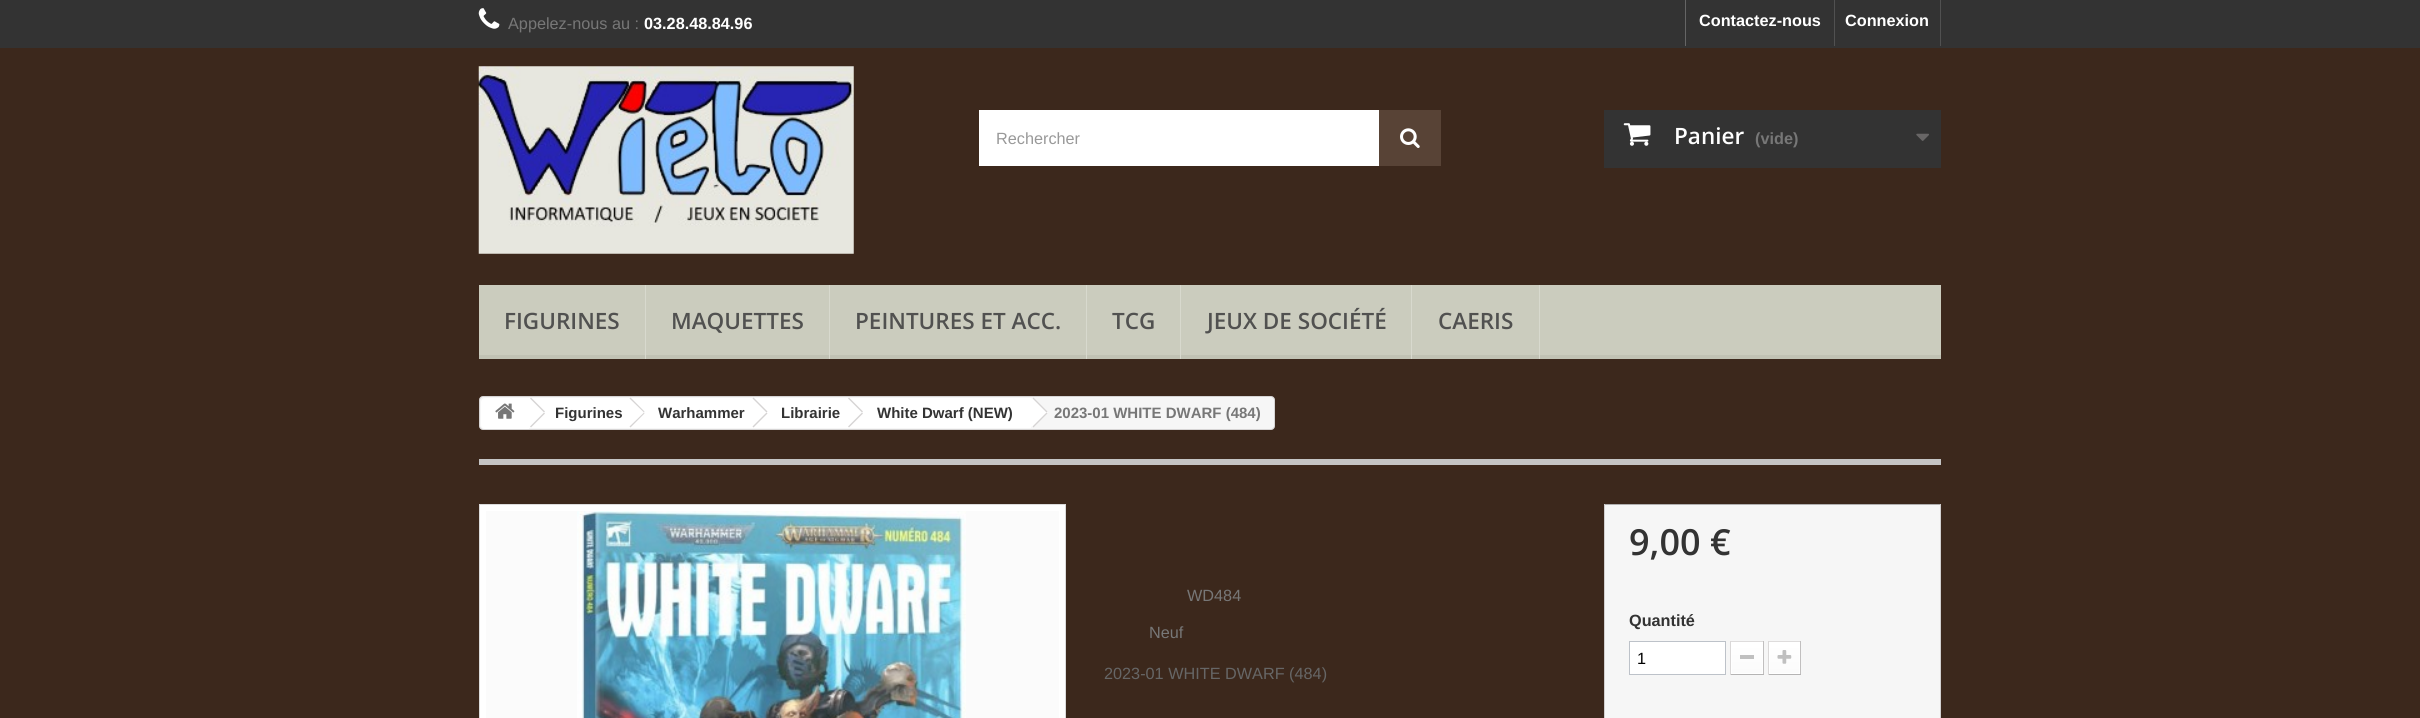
#include <cairo/cairo.h>
#include <math.h>
#include <stddef.h>


static void rounded_rect(cairo_t *cr, double x, double y, double w, double h, double r) {
  cairo_new_sub_path(cr);
  cairo_arc(cr, x + w - r, y + h - r, r, 0, M_PI / 2);
  cairo_arc(cr, x + r, y + h - r, r, M_PI / 2, M_PI);
  cairo_arc(cr, x + r, y + r, r, M_PI, 1.5 * M_PI);
  cairo_arc(cr, x + w - r, y + r, r, 1.5 * M_PI, 2 * M_PI);
  cairo_close_path(cr);
}

static void draw_image(cairo_t *cr, const char *path, double x, double y, double w, double h) {
  cairo_surface_t *image = cairo_image_surface_create_from_png(path);
  cairo_save(cr);
  cairo_set_source_surface(cr, image, x, y);
  cairo_rectangle(cr, x, y, w, h);
  cairo_fill(cr);
  cairo_restore(cr);
  cairo_surface_destroy(image);
}

static void draw(cairo_t *cr) {
  cairo_pattern_t *gradient;
  cairo_set_source_rgb(cr, 60 / 255.0, 40 / 255.0, 28 / 255.0);
  cairo_paint(cr);
  cairo_set_source_rgb(cr, 51 / 255.0, 51 / 255.0, 51 / 255.0);
  cairo_rectangle(cr, 0, 0, 2420, 48);
  cairo_fill(cr);
  draw_image(cr, "images/1.png", 478, 8, 22, 21);
  cairo_set_source_rgb(cr, 101 / 255.0, 101 / 255.0, 101 / 255.0);
  cairo_rectangle(cr, 1685, 0, 1, 46);
  cairo_fill(cr);
  cairo_set_source_rgb(cr, 81 / 255.0, 81 / 255.0, 81 / 255.0);
  cairo_rectangle(cr, 1940, 0, 1, 46);
  cairo_fill(cr);
  cairo_rectangle(cr, 1834, 0, 1, 46);
  cairo_fill(cr);
  draw_image(cr, "images/2.png", 478, 66, 376, 188);
  cairo_set_source_rgb(cr, 1, 1, 1);
  cairo_rectangle(cr, 979, 110, 400, 56);
  cairo_fill(cr);
  cairo_set_source_rgb(cr, 88 / 255.0, 67 / 255.0, 54 / 255.0);
  cairo_rectangle(cr, 1379, 110, 62, 56);
  cairo_fill(cr);
  draw_image(cr, "images/3.png", 1400, 128, 20, 20);
  cairo_set_source_rgb(cr, 51 / 255.0, 51 / 255.0, 51 / 255.0);
  cairo_rectangle(cr, 1604, 110, 337, 58);
  cairo_fill(cr);
  draw_image(cr, "images/4.png", 1623, 123, 28, 23);
  draw_image(cr, "images/5.png", 1916, 133, 13, 8);
  cairo_set_source_rgb(cr, 203 / 255.0, 204 / 255.0, 190 / 255.0);
  cairo_rectangle(cr, 479, 285, 1462, 70);
  cairo_fill(cr);
  cairo_set_source_rgb(cr, 193 / 255.0, 194 / 255.0, 180 / 255.0);
  cairo_rectangle(cr, 479, 355, 1462, 4);
  cairo_fill(cr);
  cairo_set_source_rgb(cr, 216 / 255.0, 217 / 255.0, 206 / 255.0);
  cairo_rectangle(cr, 645, 285, 1, 74);
  cairo_fill(cr);
  cairo_rectangle(cr, 829, 285, 1, 74);
  cairo_fill(cr);
  cairo_rectangle(cr, 1086, 285, 1, 74);
  cairo_fill(cr);
  cairo_rectangle(cr, 1180, 285, 1, 74);
  cairo_fill(cr);
  cairo_rectangle(cr, 1411, 285, 1, 74);
  cairo_fill(cr);
  cairo_rectangle(cr, 1539, 285, 1, 74);
  cairo_fill(cr);
  cairo_set_source_rgb(cr, 246 / 255.0, 246 / 255.0, 246 / 255.0);
  rounded_rect(cr, 479.5, 396.5, 795, 33, 3.5);
  cairo_fill_preserve(cr);
  cairo_set_source_rgb(cr, 214 / 255.0, 212 / 255.0, 212 / 255.0);
  cairo_set_line_width(cr, 1);
  cairo_stroke(cr);
  cairo_set_source_rgb(cr, 1, 1, 1);
  cairo_new_path(cr);
  cairo_move_to(cr, 485, 398);
  cairo_line_to(cr, 529, 398);
  cairo_line_to(cr, 529, 429);
  cairo_line_to(cr, 485, 429);
  cairo_curve_to(cr, 483, 429, 481, 427, 481, 425);
  cairo_line_to(cr, 481, 402);
  cairo_curve_to(cr, 481, 400, 483, 398, 485, 398);
  cairo_close_path(cr);
  cairo_fill(cr);
  draw_image(cr, "images/6.png", 495, 403, 20, 16);
  cairo_rectangle(cr, 529, 398, 102, 30);
  cairo_fill(cr);
  cairo_set_source_rgb(cr, 214 / 255.0, 212 / 255.0, 212 / 255.0);
  cairo_new_path(cr);
  cairo_move_to(cr, 531, 397.5);
  cairo_line_to(cr, 545, 411.5);
  cairo_line_to(cr, 544, 412.5);
  cairo_line_to(cr, 530, 398.5);
  cairo_close_path(cr);
  cairo_fill(cr);
  cairo_new_path(cr);
  cairo_move_to(cr, 544, 412.5);
  cairo_line_to(cr, 545, 413.5);
  cairo_line_to(cr, 531, 427.5);
  cairo_line_to(cr, 530, 426.5);
  cairo_close_path(cr);
  cairo_fill(cr);
  cairo_set_source_rgb(cr, 1, 1, 1);
  cairo_new_path(cr);
  cairo_move_to(cr, 644, 398.5);
  cairo_curve_to(cr, 641.5, 396, 637.5, 401.5, 636.5, 402.5);
  cairo_line_to(cr, 630, 408.5);
  cairo_curve_to(cr, 626.5, 412, 626.5, 413, 630, 416.5);
  cairo_line_to(cr, 638.5, 424.5);
  cairo_curve_to(cr, 642, 428, 642.5, 428, 646, 424.5);
  cairo_line_to(cr, 652.5, 418.5);
  cairo_curve_to(cr, 654.5, 416.5, 658.5, 414, 656.5, 410.5);
  cairo_close_path(cr);
  cairo_fill(cr);
  cairo_rectangle(cr, 631, 398, 123, 30);
  cairo_fill(cr);
  cairo_set_source_rgb(cr, 214 / 255.0, 212 / 255.0, 212 / 255.0);
  cairo_new_path(cr);
  cairo_move_to(cr, 630.5, 397.5);
  cairo_line_to(cr, 644.5, 411.5);
  cairo_line_to(cr, 644, 412.5);
  cairo_line_to(cr, 629.5, 398.5);
  cairo_close_path(cr);
  cairo_fill(cr);
  cairo_new_path(cr);
  cairo_move_to(cr, 644, 412.5);
  cairo_line_to(cr, 644.5, 413.5);
  cairo_line_to(cr, 630.5, 427.5);
  cairo_line_to(cr, 629.5, 426.5);
  cairo_close_path(cr);
  cairo_fill(cr);
  cairo_set_source_rgb(cr, 1, 1, 1);
  cairo_new_path(cr);
  cairo_move_to(cr, 767, 398.5);
  cairo_curve_to(cr, 764.5, 396, 760.5, 401.5, 759.5, 402.5);
  cairo_line_to(cr, 755, 406.5);
  cairo_curve_to(cr, 753.5, 408, 749, 411, 750.5, 414);
  cairo_line_to(cr, 761.5, 424.5);
  cairo_curve_to(cr, 762.5, 425.5, 764.5, 428, 766.5, 427);
  cairo_line_to(cr, 775, 418.5);
  cairo_curve_to(cr, 776.5, 417, 782, 413.5, 779, 410.5);
  cairo_close_path(cr);
  cairo_fill(cr);
  cairo_rectangle(cr, 754, 398, 95, 30);
  cairo_fill(cr);
  cairo_set_source_rgb(cr, 214 / 255.0, 212 / 255.0, 212 / 255.0);
  cairo_new_path(cr);
  cairo_move_to(cr, 753.5, 397.5);
  cairo_line_to(cr, 767.5, 411.5);
  cairo_line_to(cr, 766.5, 412.5);
  cairo_line_to(cr, 752.5, 398.5);
  cairo_close_path(cr);
  cairo_fill(cr);
  cairo_new_path(cr);
  cairo_move_to(cr, 766.5, 412.5);
  cairo_line_to(cr, 767.5, 413.5);
  cairo_line_to(cr, 753.5, 427.5);
  cairo_line_to(cr, 752.5, 426.5);
  cairo_close_path(cr);
  cairo_fill(cr);
  cairo_set_source_rgb(cr, 1, 1, 1);
  cairo_new_path(cr);
  cairo_move_to(cr, 862.5, 398.5);
  cairo_line_to(cr, 862, 398);
  cairo_line_to(cr, 859.5, 398);
  cairo_line_to(cr, 846.5, 410.5);
  cairo_curve_to(cr, 845.5, 411.5, 845.5, 413.5, 846.5, 414.5);
  cairo_line_to(cr, 859, 426.5);
  cairo_curve_to(cr, 859.5, 427.5, 861.5, 427.5, 862.5, 426.5);
  cairo_line_to(cr, 874.5, 414.5);
  cairo_curve_to(cr, 875.5, 413.5, 875.5, 411.5, 874.5, 410.5);
  cairo_close_path(cr);
  cairo_fill(cr);
  cairo_rectangle(cr, 849, 398, 182, 30);
  cairo_fill(cr);
  cairo_set_source_rgb(cr, 214 / 255.0, 212 / 255.0, 212 / 255.0);
  cairo_new_path(cr);
  cairo_move_to(cr, 849, 397.5);
  cairo_line_to(cr, 863, 411.5);
  cairo_line_to(cr, 862, 412.5);
  cairo_line_to(cr, 848, 398.5);
  cairo_close_path(cr);
  cairo_fill(cr);
  cairo_new_path(cr);
  cairo_move_to(cr, 862, 412.5);
  cairo_line_to(cr, 863, 413.5);
  cairo_line_to(cr, 849, 427.5);
  cairo_line_to(cr, 848, 426.5);
  cairo_close_path(cr);
  cairo_fill(cr);
  cairo_set_source_rgb(cr, 1, 1, 1);
  cairo_new_path(cr);
  cairo_move_to(cr, 1034.5, 398.5);
  cairo_curve_to(cr, 1032, 396, 1028, 401.5, 1027, 402.5);
  cairo_line_to(cr, 1022.5, 406.5);
  cairo_curve_to(cr, 1021, 408, 1016.5, 411, 1018, 414);
  cairo_line_to(cr, 1029, 424.5);
  cairo_curve_to(cr, 1030, 425.5, 1032, 428, 1034, 427);
  cairo_line_to(cr, 1042.5, 418.5);
  cairo_curve_to(cr, 1044, 417, 1049.5, 413.5, 1046.5, 410.5);
  cairo_close_path(cr);
  cairo_fill(cr);
  cairo_set_source_rgb(cr, 214 / 255.0, 212 / 255.0, 212 / 255.0);
  cairo_new_path(cr);
  cairo_move_to(cr, 1033.5, 397.5);
  cairo_line_to(cr, 1047.5, 411.5);
  cairo_line_to(cr, 1046.5, 412.5);
  cairo_line_to(cr, 1032.5, 398.5);
  cairo_close_path(cr);
  cairo_fill(cr);
  cairo_new_path(cr);
  cairo_move_to(cr, 1046.5, 412.5);
  cairo_line_to(cr, 1047.5, 413.5);
  cairo_line_to(cr, 1033.5, 427.5);
  cairo_line_to(cr, 1032.5, 426.5);
  cairo_close_path(cr);
  cairo_fill(cr);
  cairo_set_source_rgb(cr, 196 / 255.0, 196 / 255.0, 196 / 255.0);
  cairo_rectangle(cr, 479, 459, 1462, 6);
  cairo_fill(cr);
  cairo_set_source_rgb(cr, 1, 1, 1);
  cairo_rectangle(cr, 479.5, 504.5, 586, 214);
  cairo_fill_preserve(cr);
  cairo_set_source_rgb(cr, 219 / 255.0, 219 / 255.0, 219 / 255.0);
  cairo_stroke(cr);
  cairo_set_source_rgb(cr, 251 / 255.0, 251 / 255.0, 251 / 255.0);
  cairo_rectangle(cr, 486, 511, 573, 207);
  cairo_fill(cr);
  draw_image(cr, "images/7.png", 577, 511, 389, 207);
  cairo_set_source_rgb(cr, 246 / 255.0, 246 / 255.0, 246 / 255.0);
  cairo_rectangle(cr, 1605, 505, 335, 213);
  cairo_fill(cr);
  cairo_set_source_rgb(cr, 176 / 255.0, 175 / 255.0, 175 / 255.0);
  cairo_rectangle(cr, 1604, 504, 337, 1);
  cairo_fill(cr);
  cairo_set_source_rgb(cr, 210 / 255.0, 208 / 255.0, 208 / 255.0);
  cairo_rectangle(cr, 1940, 504, 1, 214);
  cairo_fill(cr);
  cairo_rectangle(cr, 1604, 504, 1, 214);
  cairo_fill(cr);
  cairo_set_source_rgb(cr, 1, 1, 1);
  cairo_rectangle(cr, 1629.5, 641.5, 96, 33);
  cairo_fill_preserve(cr);
  cairo_set_source_rgb(cr, 189 / 255.0, 194 / 255.0, 201 / 255.0);
  cairo_stroke(cr);
  cairo_set_source_rgb(cr, 1, 1, 1);
  cairo_rectangle(cr, 1731, 642, 32, 1);
  cairo_fill(cr);
  cairo_set_source_rgb(cr, 222 / 255.0, 220 / 255.0, 220 / 255.0);
  cairo_rectangle(cr, 1730, 641, 34, 1);
  cairo_fill(cr);
  cairo_set_source_rgb(cr, 193 / 255.0, 191 / 255.0, 191 / 255.0);
  cairo_rectangle(cr, 1763, 641, 1, 34);
  cairo_fill(cr);
  cairo_set_source_rgb(cr, 181 / 255.0, 180 / 255.0, 180 / 255.0);
  cairo_rectangle(cr, 1730, 674, 34, 1);
  cairo_fill(cr);
  cairo_set_source_rgb(cr, 218 / 255.0, 216 / 255.0, 216 / 255.0);
  cairo_rectangle(cr, 1730, 641, 1, 34);
  cairo_fill(cr);
  gradient = cairo_pattern_create_linear(1747, 644, 1747, 673);
  cairo_pattern_add_color_stop_rgba(gradient, 0, 1, 1, 1, 1);
  cairo_pattern_add_color_stop_rgba(gradient, 1, 251 / 255.0, 251 / 255.0, 251 / 255.0, 1);
  cairo_set_source(cr, gradient);
  cairo_pattern_destroy(gradient);
  cairo_rectangle(cr, 1732, 644, 30, 29);
  cairo_fill(cr);
  cairo_rectangle(cr, 1731.5, 643.5, 31, 30);
  cairo_set_source_rgb(cr, 1, 1, 1);
  cairo_stroke(cr);
  cairo_set_source_rgb(cr, 192 / 255.0, 192 / 255.0, 192 / 255.0);
  cairo_rectangle(cr, 1740, 655, 14, 4);
  cairo_fill(cr);
  cairo_set_source_rgb(cr, 1, 1, 1);
  cairo_rectangle(cr, 1769, 642, 31, 1);
  cairo_fill(cr);
  cairo_set_source_rgb(cr, 222 / 255.0, 220 / 255.0, 220 / 255.0);
  cairo_rectangle(cr, 1768, 641, 33, 1);
  cairo_fill(cr);
  cairo_set_source_rgb(cr, 193 / 255.0, 191 / 255.0, 191 / 255.0);
  cairo_rectangle(cr, 1800, 641, 1, 34);
  cairo_fill(cr);
  cairo_set_source_rgb(cr, 181 / 255.0, 180 / 255.0, 180 / 255.0);
  cairo_rectangle(cr, 1768, 674, 33, 1);
  cairo_fill(cr);
  cairo_set_source_rgb(cr, 218 / 255.0, 216 / 255.0, 216 / 255.0);
  cairo_rectangle(cr, 1768, 641, 1, 34);
  cairo_fill(cr);
  gradient = cairo_pattern_create_linear(1784, 644, 1784, 673);
  cairo_pattern_add_color_stop_rgba(gradient, 0, 1, 1, 1, 1);
  cairo_pattern_add_color_stop_rgba(gradient, 1, 251 / 255.0, 251 / 255.0, 251 / 255.0, 1);
  cairo_set_source(cr, gradient);
  cairo_pattern_destroy(gradient);
  cairo_rectangle(cr, 1770, 644, 29, 29);
  cairo_fill(cr);
  cairo_rectangle(cr, 1769.5, 643.5, 30, 30);
  cairo_set_source_rgb(cr, 1, 1, 1);
  cairo_stroke(cr);
  draw_image(cr, "images/8.png", 1777, 650, 15, 14);
  cairo_select_font_face(cr, "Liberation Sans", CAIRO_FONT_SLANT_NORMAL, CAIRO_FONT_WEIGHT_NORMAL);
  cairo_set_font_size(cr, 16.25);
  cairo_set_source_rgb(cr, 119 / 255.0, 119 / 255.0, 119 / 255.0);
  cairo_move_to(cr, 508, 29);
  cairo_show_text(cr, "Appelez-nous au :");
  cairo_select_font_face(cr, "Liberation Sans", CAIRO_FONT_SLANT_NORMAL, CAIRO_FONT_WEIGHT_BOLD);
  cairo_set_source_rgb(cr, 1, 1, 1);
  cairo_move_to(cr, 644, 29);
  cairo_show_text(cr, "03.28.48.84.96");
  cairo_move_to(cr, 1699, 26);
  cairo_show_text(cr, "Contactez-nous");
  cairo_move_to(cr, 1845, 26);
  cairo_show_text(cr, "Connexion");
  cairo_select_font_face(cr, "Liberation Sans", CAIRO_FONT_SLANT_NORMAL, CAIRO_FONT_WEIGHT_NORMAL);
  cairo_set_source_rgb(cr, 153 / 255.0, 153 / 255.0, 153 / 255.0);
  cairo_move_to(cr, 996, 144);
  cairo_show_text(cr, "Rechercher");
  cairo_select_font_face(cr, "Open Sans SemiBold", CAIRO_FONT_SLANT_NORMAL, CAIRO_FONT_WEIGHT_NORMAL);
  cairo_set_font_size(cr, 22.5);
  cairo_set_source_rgb(cr, 1, 1, 1);
  cairo_move_to(cr, 1674, 144);
  cairo_show_text(cr, "Panier");
  cairo_select_font_face(cr, "Liberation Sans", CAIRO_FONT_SLANT_NORMAL, CAIRO_FONT_WEIGHT_BOLD);
  cairo_set_font_size(cr, 16.25);
  cairo_set_source_rgb(cr, 119 / 255.0, 119 / 255.0, 119 / 255.0);
  cairo_move_to(cr, 1755, 144);
  cairo_show_text(cr, "(vide)");
  cairo_select_font_face(cr, "Open Sans SemiBold", CAIRO_FONT_SLANT_NORMAL, CAIRO_FONT_WEIGHT_NORMAL);
  cairo_set_font_size(cr, 22.5);
  cairo_set_source_rgb(cr, 81 / 255.0, 81 / 255.0, 80 / 255.0);
  cairo_move_to(cr, 504, 329);
  cairo_show_text(cr, "FIGURINES");
  cairo_move_to(cr, 671, 329);
  cairo_show_text(cr, "MAQUETTES");
  cairo_move_to(cr, 855, 329);
  cairo_show_text(cr, "PEINTURES ET ACC.");
  cairo_move_to(cr, 1112, 329);
  cairo_show_text(cr, "TCG");
  cairo_move_to(cr, 1207, 329);
  cairo_show_text(cr, "JEUX DE SOCIÉTÉ");
  cairo_move_to(cr, 1438, 329);
  cairo_show_text(cr, "CAERIS");
  cairo_select_font_face(cr, "Liberation Sans", CAIRO_FONT_SLANT_NORMAL, CAIRO_FONT_WEIGHT_BOLD);
  cairo_set_font_size(cr, 15);
  cairo_set_source_rgb(cr, 51 / 255.0, 51 / 255.0, 51 / 255.0);
  cairo_move_to(cr, 555, 418);
  cairo_show_text(cr, "Figurines");
  cairo_move_to(cr, 658, 418);
  cairo_show_text(cr, "Warhammer");
  cairo_move_to(cr, 781, 418);
  cairo_show_text(cr, "Librairie");
  cairo_move_to(cr, 877, 418);
  cairo_show_text(cr, "White Dwarf (NEW)");
  cairo_set_source_rgb(cr, 119 / 255.0, 119 / 255.0, 119 / 255.0);
  cairo_move_to(cr, 1054, 418);
  cairo_show_text(cr, "2023-01 WHITE DWARF (484)");
  cairo_select_font_face(cr, "Liberation Sans", CAIRO_FONT_SLANT_NORMAL, CAIRO_FONT_WEIGHT_NORMAL);
  cairo_set_font_size(cr, 16.25);
  cairo_move_to(cr, 1187, 601);
  cairo_show_text(cr, "WD484");
  cairo_move_to(cr, 1149, 638);
  cairo_show_text(cr, "Neuf");
  cairo_set_source_rgb(cr, 102 / 255.0, 102 / 255.0, 102 / 255.0);
  cairo_move_to(cr, 1104, 679);
  cairo_show_text(cr, "2023-01 WHITE DWARF (484)");
  cairo_select_font_face(cr, "Open Sans SemiBold", CAIRO_FONT_SLANT_NORMAL, CAIRO_FONT_WEIGHT_NORMAL);
  cairo_set_font_size(cr, 36);
  cairo_set_source_rgb(cr, 51 / 255.0, 51 / 255.0, 51 / 255.0);
  cairo_move_to(cr, 1629, 555);
  cairo_show_text(cr, "9,00 €");
  cairo_select_font_face(cr, "Liberation Sans", CAIRO_FONT_SLANT_NORMAL, CAIRO_FONT_WEIGHT_BOLD);
  cairo_set_font_size(cr, 16.25);
  cairo_move_to(cr, 1629, 626);
  cairo_show_text(cr, "Quantité");
  cairo_select_font_face(cr, "Liberation Sans", CAIRO_FONT_SLANT_NORMAL, CAIRO_FONT_WEIGHT_NORMAL);
  cairo_set_source_rgb(cr, 0, 0, 0);
  cairo_move_to(cr, 1637, 664);
  cairo_show_text(cr, "1");
}

int main(void) {
  cairo_surface_t *surface = cairo_image_surface_create(CAIRO_FORMAT_RGB24, 2420, 718);
  cairo_t *cr = cairo_create(surface);
  cairo_font_options_t *options = cairo_font_options_create();
  cairo_font_options_set_hint_metrics(options, CAIRO_HINT_METRICS_OFF);
  cairo_font_options_set_hint_style(options, CAIRO_HINT_STYLE_NONE);
  cairo_set_font_options(cr, options);
  cairo_set_miter_limit(cr, 4);
  draw(cr);
  cairo_surface_write_to_png(surface, "out.png");
  cairo_font_options_destroy(options);
  cairo_destroy(cr);
  cairo_surface_destroy(surface);
  return 0;
}
